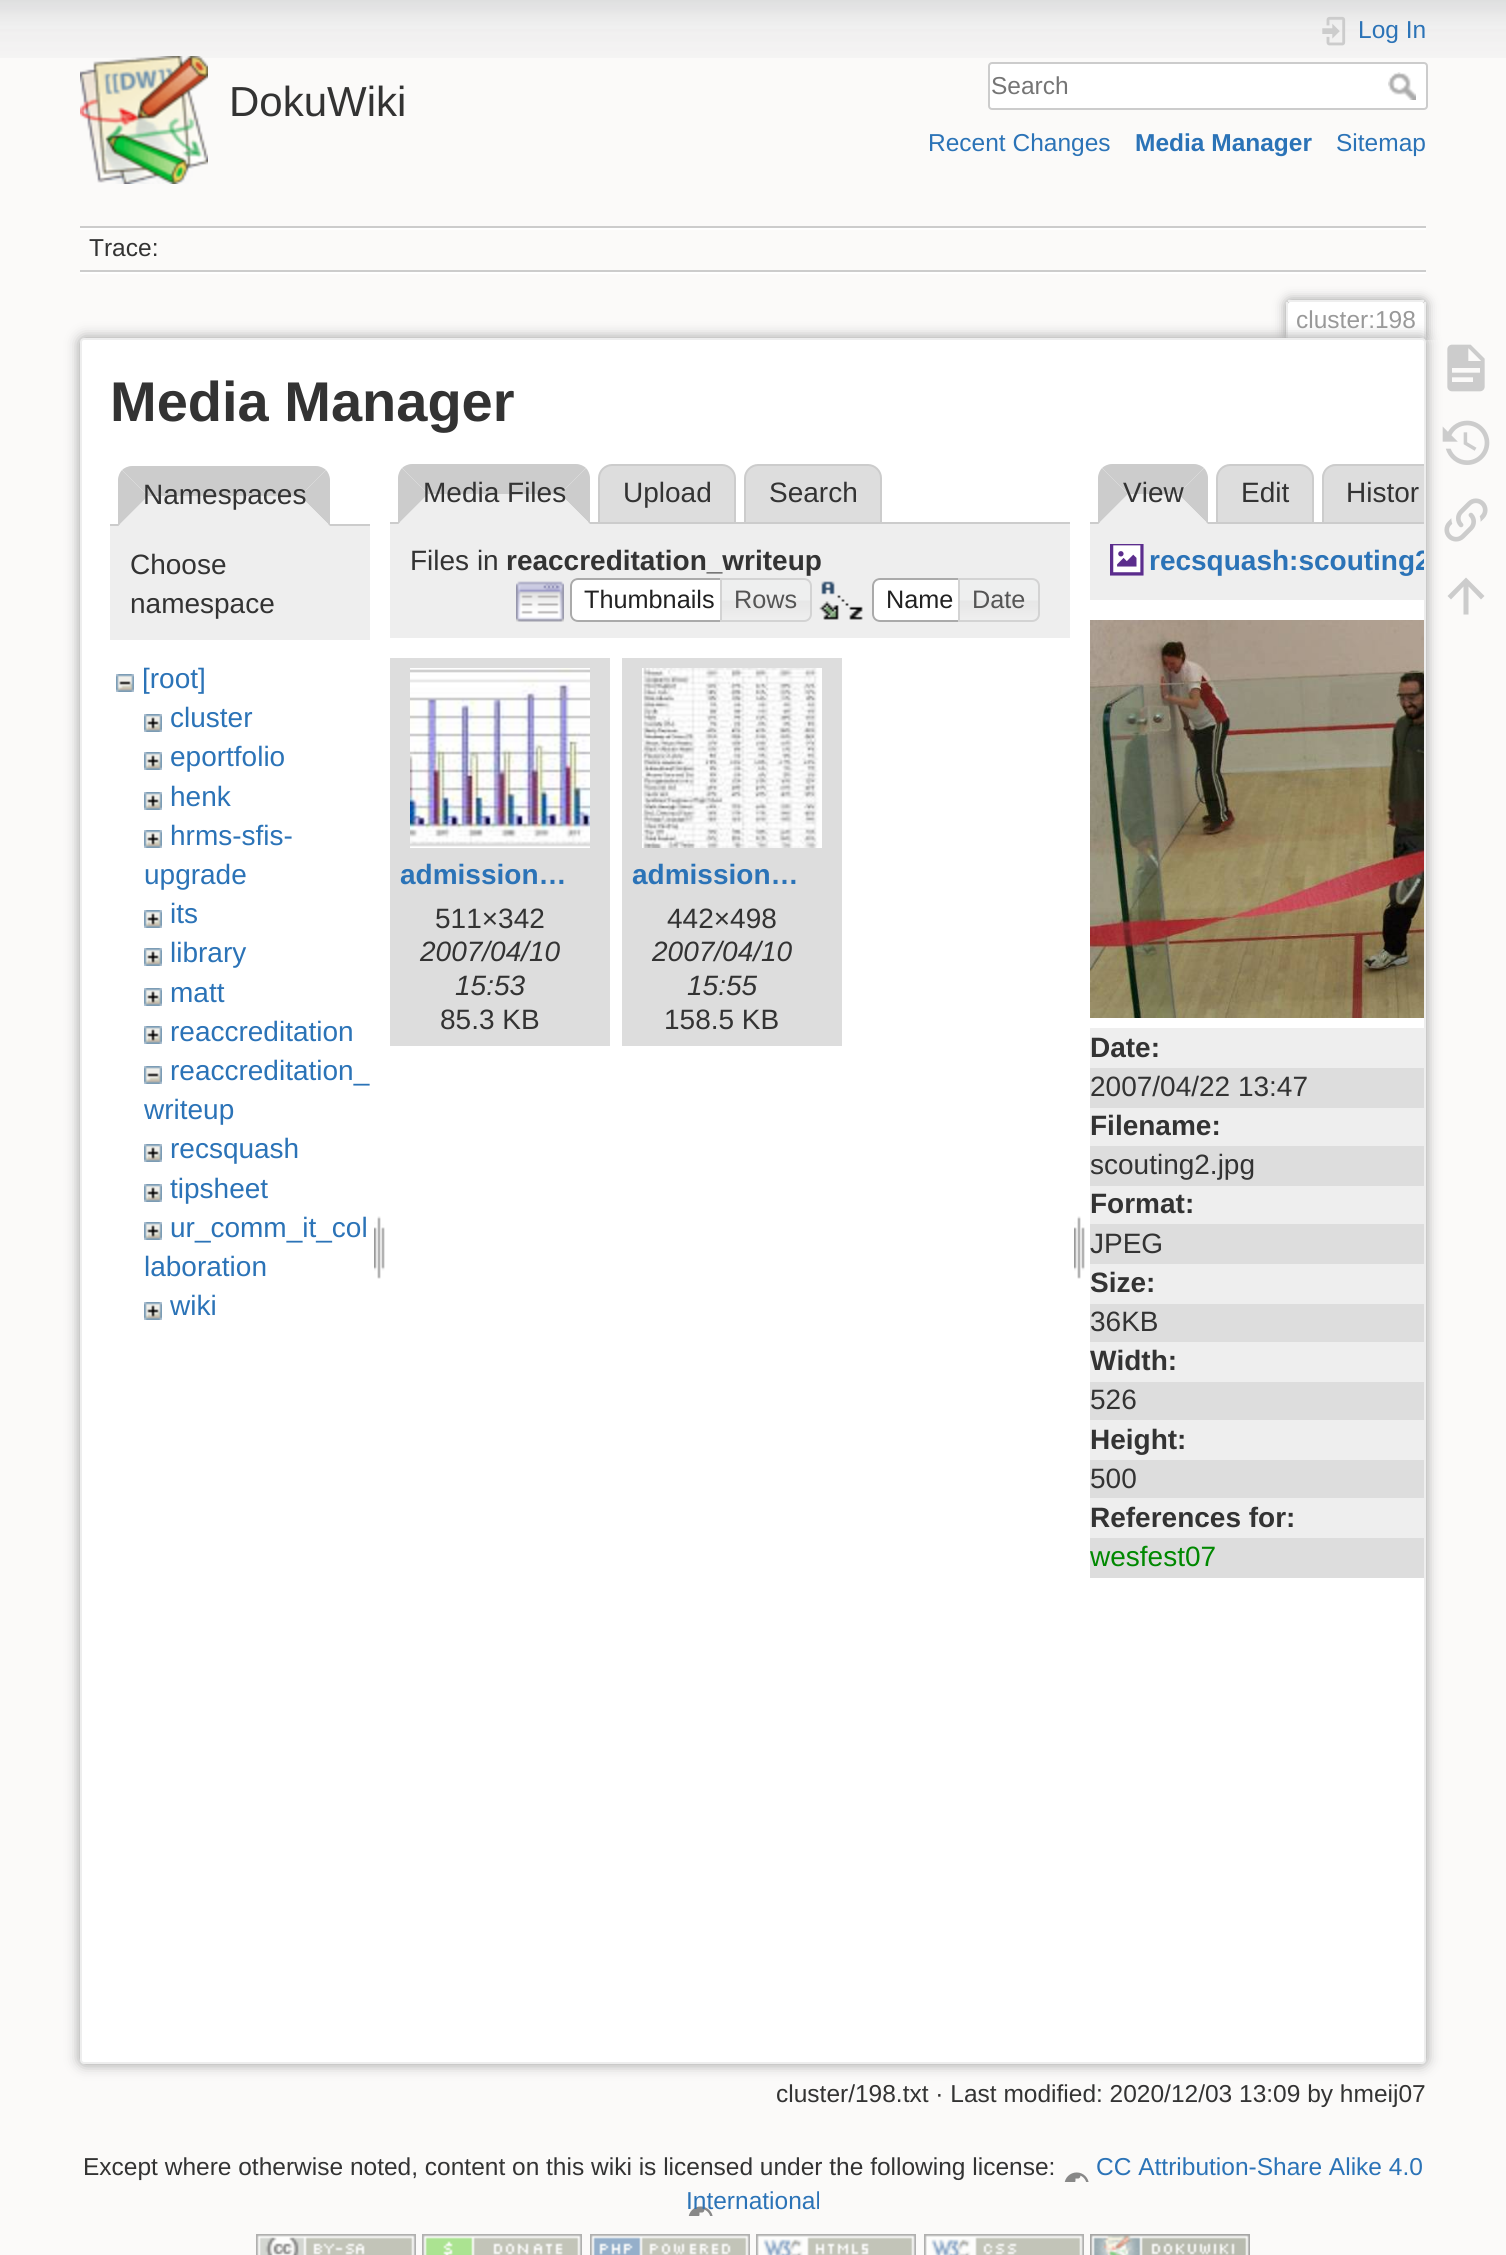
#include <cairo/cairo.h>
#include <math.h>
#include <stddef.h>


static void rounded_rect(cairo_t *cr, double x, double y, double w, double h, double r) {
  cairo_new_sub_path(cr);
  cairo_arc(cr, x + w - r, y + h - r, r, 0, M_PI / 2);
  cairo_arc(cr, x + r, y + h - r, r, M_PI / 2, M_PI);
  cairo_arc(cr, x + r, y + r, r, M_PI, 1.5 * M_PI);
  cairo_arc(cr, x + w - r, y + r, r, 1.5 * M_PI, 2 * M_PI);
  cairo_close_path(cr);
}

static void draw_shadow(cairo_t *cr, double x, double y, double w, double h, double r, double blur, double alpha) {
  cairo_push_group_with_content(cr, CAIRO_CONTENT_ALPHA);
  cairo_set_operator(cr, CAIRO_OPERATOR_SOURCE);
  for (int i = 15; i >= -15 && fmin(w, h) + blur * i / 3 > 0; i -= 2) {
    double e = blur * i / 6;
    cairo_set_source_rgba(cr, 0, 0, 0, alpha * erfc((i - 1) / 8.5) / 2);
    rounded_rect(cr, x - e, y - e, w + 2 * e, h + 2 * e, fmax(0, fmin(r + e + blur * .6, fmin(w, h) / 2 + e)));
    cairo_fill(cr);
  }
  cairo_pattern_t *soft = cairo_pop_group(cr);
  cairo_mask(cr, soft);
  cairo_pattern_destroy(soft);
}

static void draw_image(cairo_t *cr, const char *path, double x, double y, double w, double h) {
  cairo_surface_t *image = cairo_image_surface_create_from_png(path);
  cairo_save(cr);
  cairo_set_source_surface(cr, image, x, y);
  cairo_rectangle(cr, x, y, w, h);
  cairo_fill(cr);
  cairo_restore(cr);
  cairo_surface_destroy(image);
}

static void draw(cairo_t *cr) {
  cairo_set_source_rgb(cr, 251 / 255.0, 250 / 255.0, 249 / 255.0);
  cairo_paint(cr);
  draw_image(cr, "images/1.png", 0, 0, 1506, 58);
  draw_image(cr, "images/2.png", 80, 56, 128, 128);
  draw_image(cr, "images/3.png", 1322, 16, 24, 30);
  cairo_set_source_rgb(cr, 1, 1, 1);
  rounded_rect(cr, 989, 63, 438, 46, 3);
  cairo_fill_preserve(cr);
  cairo_set_source_rgb(cr, 204 / 255.0, 204 / 255.0, 204 / 255.0);
  cairo_stroke(cr);
  draw_image(cr, "images/4.png", 1388, 72, 28, 28);
  cairo_rectangle(cr, 80, 226, 1346, 2);
  cairo_fill(cr);
  cairo_set_source_rgb(cr, 1, 1, 1);
  cairo_rectangle(cr, 80, 272, 1346, 2);
  cairo_fill(cr);
  cairo_rectangle(cr, 80, 228, 1346, 2);
  cairo_fill(cr);
  cairo_set_source_rgb(cr, 204 / 255.0, 204 / 255.0, 204 / 255.0);
  cairo_rectangle(cr, 80, 270, 1346, 2);
  cairo_fill(cr);
  cairo_save(cr);
  cairo_rectangle(cr, 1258, 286, 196, 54);
  cairo_clip(cr);
  cairo_set_source_rgb(cr, 153 / 255.0, 153 / 255.0, 153 / 255.0);
  draw_shadow(cr, 1286, 300, 140, 40, 4, 6, 1);
  cairo_restore(cr);
  cairo_set_source_rgb(cr, 1, 1, 1);
  cairo_new_path(cr);
  cairo_move_to(cr, 1290, 302);
  cairo_line_to(cr, 1422, 302);
  cairo_curve_to(cr, 1423, 302, 1424, 303, 1424, 304);
  cairo_line_to(cr, 1424, 340);
  cairo_line_to(cr, 1288, 340);
  cairo_line_to(cr, 1288, 304);
  cairo_curve_to(cr, 1288, 303, 1289, 302, 1290, 302);
  cairo_close_path(cr);
  cairo_fill(cr);
  cairo_set_source_rgb(cr, 238 / 255.0, 238 / 255.0, 238 / 255.0);
  cairo_rectangle(cr, 1288, 300, 136, 2);
  cairo_fill(cr);
  cairo_rectangle(cr, 1424, 302, 2, 38);
  cairo_fill(cr);
  cairo_rectangle(cr, 1286, 302, 2, 38);
  cairo_fill(cr);
  cairo_set_source_rgb(cr, 153 / 255.0, 153 / 255.0, 153 / 255.0);
  draw_shadow(cr, 80, 338, 1346, 1726, 4, 7, 1);
  cairo_set_source_rgb(cr, 1, 1, 1);
  rounded_rect(cr, 81, 339, 1344, 1724, 3);
  cairo_fill_preserve(cr);
  cairo_set_source_rgb(cr, 238 / 255.0, 238 / 255.0, 238 / 255.0);
  cairo_stroke(cr);
  cairo_set_source_rgb(cr, 204 / 255.0, 204 / 255.0, 204 / 255.0);
  cairo_new_path(cr);
  cairo_move_to(cr, 132, 466);
  cairo_line_to(cr, 316, 466);
  cairo_curve_to(cr, 320, 466, 324, 468, 326, 470);
  cairo_line_to(cr, 300, 496);
  cairo_line_to(cr, 148, 496);
  cairo_line_to(cr, 122, 470);
  cairo_curve_to(cr, 124, 468, 128, 466, 132, 466);
  cairo_close_path(cr);
  cairo_fill(cr);
  cairo_rectangle(cr, 110, 524, 260, 2);
  cairo_fill(cr);
  cairo_new_path(cr);
  cairo_move_to(cr, 326, 470);
  cairo_line_to(cr, 300, 496);
  cairo_line_to(cr, 330, 526);
  cairo_line_to(cr, 330, 480);
  cairo_curve_to(cr, 330, 476, 328, 472, 326, 470);
  cairo_close_path(cr);
  cairo_fill(cr);
  cairo_set_source_rgb(cr, 238 / 255.0, 238 / 255.0, 238 / 255.0);
  cairo_new_path(cr);
  cairo_move_to(cr, 330, 526);
  cairo_line_to(cr, 300, 496);
  cairo_line_to(cr, 148, 496);
  cairo_line_to(cr, 118, 526);
  cairo_close_path(cr);
  cairo_fill(cr);
  cairo_set_source_rgb(cr, 204 / 255.0, 204 / 255.0, 204 / 255.0);
  cairo_new_path(cr);
  cairo_move_to(cr, 118, 526);
  cairo_line_to(cr, 118, 480);
  cairo_curve_to(cr, 118, 476, 120, 472, 122, 470);
  cairo_line_to(cr, 148, 496);
  cairo_close_path(cr);
  cairo_fill(cr);
  cairo_set_source_rgb(cr, 238 / 255.0, 238 / 255.0, 238 / 255.0);
  cairo_rectangle(cr, 110, 526, 260, 114);
  cairo_fill(cr);
  draw_image(cr, "images/5.png", 116, 674, 18, 18);
  draw_image(cr, "images/6.png", 144, 714, 18, 18);
  draw_image(cr, "images/6.png", 144, 752, 18, 18);
  draw_image(cr, "images/6.png", 144, 792, 18, 18);
  draw_image(cr, "images/6.png", 144, 830, 18, 18);
  draw_image(cr, "images/6.png", 144, 910, 18, 18);
  draw_image(cr, "images/6.png", 144, 948, 18, 18);
  draw_image(cr, "images/6.png", 144, 988, 18, 18);
  draw_image(cr, "images/6.png", 144, 1026, 18, 18);
  draw_image(cr, "images/5.png", 144, 1066, 18, 18);
  draw_image(cr, "images/6.png", 144, 1144, 18, 18);
  draw_image(cr, "images/6.png", 144, 1184, 18, 18);
  draw_image(cr, "images/6.png", 144, 1222, 18, 18);
  draw_image(cr, "images/6.png", 144, 1302, 18, 18);
  draw_image(cr, "images/7.png", 374, 1216, 11, 63);
  cairo_set_source_rgb(cr, 204 / 255.0, 204 / 255.0, 204 / 255.0);
  cairo_new_path(cr);
  cairo_move_to(cr, 412, 464);
  cairo_line_to(cr, 576, 464);
  cairo_curve_to(cr, 580, 464, 584, 466, 586, 468);
  cairo_line_to(cr, 560, 494);
  cairo_line_to(cr, 428, 494);
  cairo_line_to(cr, 402, 468);
  cairo_curve_to(cr, 404, 466, 408, 464, 412, 464);
  cairo_close_path(cr);
  cairo_fill(cr);
  cairo_set_source_rgb(cr, 221 / 255.0, 221 / 255.0, 221 / 255.0);
  cairo_new_path(cr);
  cairo_move_to(cr, 612, 465);
  cairo_line_to(cr, 722, 465);
  cairo_curve_to(cr, 729, 465, 735, 471, 735, 478);
  cairo_line_to(cr, 735, 523);
  cairo_line_to(cr, 599, 523);
  cairo_line_to(cr, 599, 478);
  cairo_curve_to(cr, 599, 471, 605, 465, 612, 465);
  cairo_close_path(cr);
  cairo_fill_preserve(cr);
  cairo_set_source_rgb(cr, 204 / 255.0, 204 / 255.0, 204 / 255.0);
  cairo_stroke(cr);
  cairo_set_source_rgb(cr, 221 / 255.0, 221 / 255.0, 221 / 255.0);
  cairo_new_path(cr);
  cairo_move_to(cr, 758, 465);
  cairo_line_to(cr, 868, 465);
  cairo_curve_to(cr, 875, 465, 881, 471, 881, 478);
  cairo_line_to(cr, 881, 523);
  cairo_line_to(cr, 745, 523);
  cairo_line_to(cr, 745, 478);
  cairo_curve_to(cr, 745, 471, 751, 465, 758, 465);
  cairo_close_path(cr);
  cairo_fill_preserve(cr);
  cairo_set_source_rgb(cr, 204 / 255.0, 204 / 255.0, 204 / 255.0);
  cairo_stroke(cr);
  cairo_rectangle(cr, 390, 522, 680, 2);
  cairo_fill(cr);
  cairo_new_path(cr);
  cairo_move_to(cr, 586, 468);
  cairo_line_to(cr, 560, 494);
  cairo_line_to(cr, 590, 524);
  cairo_line_to(cr, 590, 478);
  cairo_curve_to(cr, 590, 474, 588, 470, 586, 468);
  cairo_close_path(cr);
  cairo_fill(cr);
  cairo_set_source_rgb(cr, 238 / 255.0, 238 / 255.0, 238 / 255.0);
  cairo_new_path(cr);
  cairo_move_to(cr, 590, 524);
  cairo_line_to(cr, 560, 494);
  cairo_line_to(cr, 428, 494);
  cairo_line_to(cr, 398, 524);
  cairo_close_path(cr);
  cairo_fill(cr);
  cairo_set_source_rgb(cr, 204 / 255.0, 204 / 255.0, 204 / 255.0);
  cairo_new_path(cr);
  cairo_move_to(cr, 398, 524);
  cairo_line_to(cr, 398, 478);
  cairo_curve_to(cr, 398, 474, 400, 470, 402, 468);
  cairo_line_to(cr, 428, 494);
  cairo_close_path(cr);
  cairo_fill(cr);
  cairo_set_source_rgb(cr, 238 / 255.0, 238 / 255.0, 238 / 255.0);
  cairo_rectangle(cr, 390, 524, 680, 114);
  cairo_fill(cr);
  draw_image(cr, "images/8.png", 516, 581, 48, 41);
  cairo_set_source_rgb(cr, 1, 1, 1);
  cairo_new_path(cr);
  cairo_move_to(cr, 578, 578);
  cairo_line_to(cr, 730, 578);
  cairo_line_to(cr, 730, 622);
  cairo_line_to(cr, 578, 622);
  cairo_curve_to(cr, 573.5, 622, 570, 618.5, 570, 614);
  cairo_line_to(cr, 570, 586);
  cairo_curve_to(cr, 570, 581.5, 573.5, 578, 578, 578);
  cairo_close_path(cr);
  cairo_fill(cr);
  draw_image(cr, "images/9.png", 570, 578, 6, 44);
  cairo_new_path(cr);
  cairo_move_to(cr, 578, 579);
  cairo_line_to(cr, 729, 579);
  cairo_line_to(cr, 729, 621);
  cairo_line_to(cr, 578, 621);
  cairo_curve_to(cr, 574, 621, 571, 618, 571, 614);
  cairo_line_to(cr, 571, 586);
  cairo_curve_to(cr, 571, 582, 574, 579, 578, 579);
  cairo_close_path(cr);
  cairo_set_source_rgb(cr, 170 / 255.0, 170 / 255.0, 170 / 255.0);
  cairo_stroke(cr);
  draw_image(cr, "images/10.png", 722, 578, 90, 44);
  cairo_new_path(cr);
  cairo_move_to(cr, 721, 579);
  cairo_line_to(cr, 804, 579);
  cairo_curve_to(cr, 808, 579, 811, 582, 811, 586);
  cairo_line_to(cr, 811, 614);
  cairo_curve_to(cr, 811, 618, 808, 621, 804, 621);
  cairo_line_to(cr, 721, 621);
  cairo_close_path(cr);
  cairo_set_source_rgb(cr, 211 / 255.0, 211 / 255.0, 211 / 255.0);
  cairo_stroke(cr);
  draw_image(cr, "images/11.png", 819, 581, 44, 39);
  cairo_set_source_rgb(cr, 1, 1, 1);
  cairo_new_path(cr);
  cairo_move_to(cr, 880, 578);
  cairo_line_to(cr, 968, 578);
  cairo_line_to(cr, 968, 622);
  cairo_line_to(cr, 880, 622);
  cairo_curve_to(cr, 875.5, 622, 872, 618.5, 872, 614);
  cairo_line_to(cr, 872, 586);
  cairo_curve_to(cr, 872, 581.5, 875.5, 578, 880, 578);
  cairo_close_path(cr);
  cairo_fill(cr);
  draw_image(cr, "images/9.png", 872, 578, 6, 44);
  cairo_new_path(cr);
  cairo_move_to(cr, 880, 579);
  cairo_line_to(cr, 967, 579);
  cairo_line_to(cr, 967, 621);
  cairo_line_to(cr, 880, 621);
  cairo_curve_to(cr, 876, 621, 873, 618, 873, 614);
  cairo_line_to(cr, 873, 586);
  cairo_curve_to(cr, 873, 582, 876, 579, 880, 579);
  cairo_close_path(cr);
  cairo_set_source_rgb(cr, 170 / 255.0, 170 / 255.0, 170 / 255.0);
  cairo_stroke(cr);
  draw_image(cr, "images/12.png", 960, 578, 80, 44);
  cairo_new_path(cr);
  cairo_move_to(cr, 959, 579);
  cairo_line_to(cr, 1032, 579);
  cairo_curve_to(cr, 1036, 579, 1039, 582, 1039, 586);
  cairo_line_to(cr, 1039, 614);
  cairo_curve_to(cr, 1039, 618, 1036, 621, 1032, 621);
  cairo_line_to(cr, 959, 621);
  cairo_close_path(cr);
  cairo_set_source_rgb(cr, 211 / 255.0, 211 / 255.0, 211 / 255.0);
  cairo_stroke(cr);
  cairo_set_source_rgb(cr, 221 / 255.0, 221 / 255.0, 221 / 255.0);
  cairo_rectangle(cr, 390, 658, 220, 388);
  cairo_fill(cr);
  draw_image(cr, "images/13.png", 410, 668, 180, 180);
  cairo_rectangle(cr, 622, 658, 220, 388);
  cairo_fill(cr);
  draw_image(cr, "images/14.png", 642, 668, 180, 180);
  draw_image(cr, "images/7.png", 1074, 1216, 11, 63);
  cairo_set_source_rgb(cr, 204 / 255.0, 204 / 255.0, 204 / 255.0);
  cairo_new_path(cr);
  cairo_move_to(cr, 1112, 464);
  cairo_line_to(cr, 1194, 464);
  cairo_curve_to(cr, 1198, 464, 1202, 466, 1204, 468);
  cairo_line_to(cr, 1178, 494);
  cairo_line_to(cr, 1128, 494);
  cairo_line_to(cr, 1102, 468);
  cairo_curve_to(cr, 1104, 466, 1108, 464, 1112, 464);
  cairo_close_path(cr);
  cairo_fill(cr);
  cairo_set_source_rgb(cr, 221 / 255.0, 221 / 255.0, 221 / 255.0);
  cairo_new_path(cr);
  cairo_move_to(cr, 1230, 465);
  cairo_line_to(cr, 1300, 465);
  cairo_curve_to(cr, 1307, 465, 1313, 471, 1313, 478);
  cairo_line_to(cr, 1313, 523);
  cairo_line_to(cr, 1217, 523);
  cairo_line_to(cr, 1217, 478);
  cairo_curve_to(cr, 1217, 471, 1223, 465, 1230, 465);
  cairo_close_path(cr);
  cairo_fill_preserve(cr);
  cairo_set_source_rgb(cr, 204 / 255.0, 204 / 255.0, 204 / 255.0);
  cairo_stroke(cr);
  cairo_rectangle(cr, 1090, 522, 232, 2);
  cairo_fill(cr);
  cairo_new_path(cr);
  cairo_move_to(cr, 1204, 468);
  cairo_line_to(cr, 1178, 494);
  cairo_line_to(cr, 1208, 524);
  cairo_line_to(cr, 1208, 478);
  cairo_curve_to(cr, 1208, 474, 1206, 470, 1204, 468);
  cairo_close_path(cr);
  cairo_fill(cr);
  cairo_set_source_rgb(cr, 238 / 255.0, 238 / 255.0, 238 / 255.0);
  cairo_new_path(cr);
  cairo_move_to(cr, 1208, 524);
  cairo_line_to(cr, 1178, 494);
  cairo_line_to(cr, 1128, 494);
  cairo_line_to(cr, 1098, 524);
  cairo_close_path(cr);
  cairo_fill(cr);
  cairo_set_source_rgb(cr, 204 / 255.0, 204 / 255.0, 204 / 255.0);
  cairo_new_path(cr);
  cairo_move_to(cr, 1098, 524);
  cairo_line_to(cr, 1098, 478);
  cairo_curve_to(cr, 1098, 474, 1100, 470, 1102, 468);
  cairo_line_to(cr, 1128, 494);
  cairo_close_path(cr);
  cairo_fill(cr);
  cairo_set_source_rgb(cr, 221 / 255.0, 221 / 255.0, 221 / 255.0);
  cairo_new_path(cr);
  cairo_move_to(cr, 1336, 464);
  cairo_line_to(cr, 1424, 464);
  cairo_line_to(cr, 1424, 524);
  cairo_line_to(cr, 1322, 524);
  cairo_line_to(cr, 1322, 478);
  cairo_curve_to(cr, 1322, 470.5, 1328.5, 464, 1336, 464);
  cairo_close_path(cr);
  cairo_fill(cr);
  cairo_set_source_rgb(cr, 204 / 255.0, 204 / 255.0, 204 / 255.0);
  cairo_new_path(cr);
  cairo_move_to(cr, 1336, 464);
  cairo_curve_to(cr, 1328, 464, 1322, 470, 1322, 478);
  cairo_line_to(cr, 1322, 524);
  cairo_line_to(cr, 1424, 524);
  cairo_line_to(cr, 1424, 522);
  cairo_line_to(cr, 1324, 522);
  cairo_line_to(cr, 1324, 478);
  cairo_curve_to(cr, 1324, 471, 1329, 466, 1336, 466);
  cairo_line_to(cr, 1424, 466);
  cairo_line_to(cr, 1424, 464);
  cairo_close_path(cr);
  cairo_fill(cr);
  cairo_set_source_rgb(cr, 238 / 255.0, 238 / 255.0, 238 / 255.0);
  cairo_rectangle(cr, 1090, 524, 334, 76);
  cairo_fill(cr);
  draw_image(cr, "images/15.png", 1110, 544, 34, 32);
  draw_image(cr, "images/16.png", 1090, 620, 334, 398);
  cairo_rectangle(cr, 1090, 1028, 334, 40);
  cairo_fill(cr);
  cairo_set_source_rgb(cr, 221 / 255.0, 221 / 255.0, 221 / 255.0);
  cairo_rectangle(cr, 1090, 1068, 334, 40);
  cairo_fill(cr);
  cairo_set_source_rgb(cr, 238 / 255.0, 238 / 255.0, 238 / 255.0);
  cairo_rectangle(cr, 1090, 1108, 334, 38);
  cairo_fill(cr);
  cairo_set_source_rgb(cr, 221 / 255.0, 221 / 255.0, 221 / 255.0);
  cairo_rectangle(cr, 1090, 1146, 334, 40);
  cairo_fill(cr);
  cairo_set_source_rgb(cr, 238 / 255.0, 238 / 255.0, 238 / 255.0);
  cairo_rectangle(cr, 1090, 1186, 334, 38);
  cairo_fill(cr);
  cairo_set_source_rgb(cr, 221 / 255.0, 221 / 255.0, 221 / 255.0);
  cairo_rectangle(cr, 1090, 1224, 334, 40);
  cairo_fill(cr);
  cairo_set_source_rgb(cr, 238 / 255.0, 238 / 255.0, 238 / 255.0);
  cairo_rectangle(cr, 1090, 1264, 334, 40);
  cairo_fill(cr);
  cairo_set_source_rgb(cr, 221 / 255.0, 221 / 255.0, 221 / 255.0);
  cairo_rectangle(cr, 1090, 1304, 334, 38);
  cairo_fill(cr);
  cairo_set_source_rgb(cr, 238 / 255.0, 238 / 255.0, 238 / 255.0);
  cairo_rectangle(cr, 1090, 1342, 334, 40);
  cairo_fill(cr);
  cairo_set_source_rgb(cr, 221 / 255.0, 221 / 255.0, 221 / 255.0);
  cairo_rectangle(cr, 1090, 1382, 334, 38);
  cairo_fill(cr);
  cairo_set_source_rgb(cr, 238 / 255.0, 238 / 255.0, 238 / 255.0);
  cairo_rectangle(cr, 1090, 1420, 334, 40);
  cairo_fill(cr);
  cairo_set_source_rgb(cr, 221 / 255.0, 221 / 255.0, 221 / 255.0);
  cairo_rectangle(cr, 1090, 1460, 334, 38);
  cairo_fill(cr);
  cairo_set_source_rgb(cr, 238 / 255.0, 238 / 255.0, 238 / 255.0);
  cairo_rectangle(cr, 1090, 1498, 334, 40);
  cairo_fill(cr);
  cairo_set_source_rgb(cr, 221 / 255.0, 221 / 255.0, 221 / 255.0);
  cairo_rectangle(cr, 1090, 1538, 334, 40);
  cairo_fill(cr);
  draw_image(cr, "images/17.png", 1447, 344, 38, 48);
  draw_image(cr, "images/18.png", 1442, 420, 48, 45);
  draw_image(cr, "images/19.png", 1444, 498, 44, 44);
  cairo_set_source_rgb(cr, 204 / 255.0, 204 / 255.0, 204 / 255.0);
  cairo_new_path(cr);
  cairo_move_to(cr, 1468.5, 614.5);
  cairo_line_to(cr, 1463.5, 614.5);
  cairo_line_to(cr, 1463.5, 586.5);
  cairo_line_to(cr, 1451, 599.5);
  cairo_line_to(cr, 1447.5, 596);
  cairo_line_to(cr, 1466, 577.5);
  cairo_line_to(cr, 1484.5, 596);
  cairo_line_to(cr, 1481, 599.5);
  cairo_line_to(cr, 1468.5, 586.5);
  cairo_close_path(cr);
  cairo_fill(cr);
  draw_image(cr, "images/21.png", 256, 2234, 160, 21);
  draw_image(cr, "images/22.png", 422, 2234, 160, 21);
  draw_image(cr, "images/23.png", 590, 2234, 160, 21);
  draw_image(cr, "images/24.png", 756, 2234, 160, 21);
  draw_image(cr, "images/25.png", 924, 2234, 160, 21);
  draw_image(cr, "images/26.png", 1090, 2234, 160, 21);
  cairo_select_font_face(cr, "Liberation Sans", CAIRO_FONT_SLANT_NORMAL, CAIRO_FONT_WEIGHT_NORMAL);
  cairo_set_font_size(cr, 42);
  cairo_set_source_rgb(cr, 51 / 255.0, 51 / 255.0, 51 / 255.0);
  cairo_move_to(cr, 229, 116);
  cairo_show_text(cr, "DokuWiki");
  cairo_set_font_size(cr, 24.5);
  cairo_set_source_rgb(cr, 43 / 255.0, 115 / 255.0, 183 / 255.0);
  cairo_move_to(cr, 1358, 38);
  cairo_show_text(cr, "Log In");
  cairo_set_source_rgb(cr, 117 / 255.0, 117 / 255.0, 117 / 255.0);
  cairo_move_to(cr, 991, 94);
  cairo_show_text(cr, "Search");
  cairo_set_source_rgb(cr, 43 / 255.0, 115 / 255.0, 183 / 255.0);
  cairo_move_to(cr, 928, 151);
  cairo_show_text(cr, "Recent Changes");
  cairo_select_font_face(cr, "Liberation Sans", CAIRO_FONT_SLANT_NORMAL, CAIRO_FONT_WEIGHT_BOLD);
  cairo_move_to(cr, 1135, 151);
  cairo_show_text(cr, "Media Manager");
  cairo_select_font_face(cr, "Liberation Sans", CAIRO_FONT_SLANT_NORMAL, CAIRO_FONT_WEIGHT_NORMAL);
  cairo_move_to(cr, 1336, 151);
  cairo_show_text(cr, "Sitemap");
  cairo_set_source_rgb(cr, 51 / 255.0, 51 / 255.0, 51 / 255.0);
  cairo_move_to(cr, 89, 256);
  cairo_show_text(cr, "Trace:");
  cairo_set_source_rgb(cr, 153 / 255.0, 153 / 255.0, 153 / 255.0);
  cairo_move_to(cr, 1296, 328);
  cairo_show_text(cr, "cluster:198");
  cairo_select_font_face(cr, "Liberation Sans", CAIRO_FONT_SLANT_NORMAL, CAIRO_FONT_WEIGHT_BOLD);
  cairo_set_font_size(cr, 56);
  cairo_set_source_rgb(cr, 51 / 255.0, 51 / 255.0, 51 / 255.0);
  cairo_move_to(cr, 110, 421);
  cairo_show_text(cr, "Media Manager");
  cairo_select_font_face(cr, "Liberation Sans", CAIRO_FONT_SLANT_NORMAL, CAIRO_FONT_WEIGHT_NORMAL);
  cairo_set_font_size(cr, 28);
  cairo_move_to(cr, 143, 504);
  cairo_show_text(cr, "Namespaces");
  cairo_move_to(cr, 130, 574);
  cairo_show_text(cr, "Choose");
  cairo_move_to(cr, 130, 613);
  cairo_show_text(cr, "namespace");
  cairo_set_source_rgb(cr, 43 / 255.0, 115 / 255.0, 183 / 255.0);
  cairo_move_to(cr, 142, 688);
  cairo_show_text(cr, "[root]");
  cairo_move_to(cr, 170, 727);
  cairo_show_text(cr, "cluster");
  cairo_move_to(cr, 170, 766);
  cairo_show_text(cr, "eportfolio");
  cairo_move_to(cr, 170, 806);
  cairo_show_text(cr, "henk");
  cairo_move_to(cr, 170, 845);
  cairo_show_text(cr, "hrms-sfis-");
  cairo_move_to(cr, 144, 884);
  cairo_show_text(cr, "upgrade");
  cairo_move_to(cr, 170, 923);
  cairo_show_text(cr, "its");
  cairo_move_to(cr, 170, 962);
  cairo_show_text(cr, "library");
  cairo_move_to(cr, 170, 1002);
  cairo_show_text(cr, "matt");
  cairo_move_to(cr, 170, 1041);
  cairo_show_text(cr, "reaccreditation");
  cairo_move_to(cr, 170, 1080);
  cairo_show_text(cr, "reaccreditation_");
  cairo_move_to(cr, 144, 1119);
  cairo_show_text(cr, "writeup");
  cairo_move_to(cr, 170, 1158);
  cairo_show_text(cr, "recsquash");
  cairo_move_to(cr, 170, 1198);
  cairo_show_text(cr, "tipsheet");
  cairo_move_to(cr, 170, 1237);
  cairo_show_text(cr, "ur_comm_it_col");
  cairo_move_to(cr, 144, 1276);
  cairo_show_text(cr, "laboration");
  cairo_move_to(cr, 170, 1315);
  cairo_show_text(cr, "wiki");
  cairo_set_source_rgb(cr, 51 / 255.0, 51 / 255.0, 51 / 255.0);
  cairo_move_to(cr, 423, 502);
  cairo_show_text(cr, "Media Files");
  cairo_move_to(cr, 623, 502);
  cairo_show_text(cr, "Upload");
  cairo_move_to(cr, 769, 502);
  cairo_show_text(cr, "Search");
  cairo_move_to(cr, 410, 570);
  cairo_show_text(cr, "Files in");
  cairo_select_font_face(cr, "Liberation Sans", CAIRO_FONT_SLANT_NORMAL, CAIRO_FONT_WEIGHT_BOLD);
  cairo_move_to(cr, 506, 570);
  cairo_show_text(cr, "reaccreditation_writeup");
  cairo_select_font_face(cr, "Liberation Sans", CAIRO_FONT_SLANT_NORMAL, CAIRO_FONT_WEIGHT_NORMAL);
  cairo_set_font_size(cr, 25.25);
  cairo_set_source_rgb(cr, 33 / 255.0, 33 / 255.0, 33 / 255.0);
  cairo_move_to(cr, 584, 608);
  cairo_show_text(cr, "Thumbnails");
  cairo_set_source_rgb(cr, 85 / 255.0, 85 / 255.0, 85 / 255.0);
  cairo_move_to(cr, 734, 608);
  cairo_show_text(cr, "Rows");
  cairo_set_source_rgb(cr, 33 / 255.0, 33 / 255.0, 33 / 255.0);
  cairo_move_to(cr, 886, 608);
  cairo_show_text(cr, "Name");
  cairo_set_source_rgb(cr, 85 / 255.0, 85 / 255.0, 85 / 255.0);
  cairo_move_to(cr, 972, 608);
  cairo_show_text(cr, "Date");
  cairo_select_font_face(cr, "Liberation Sans", CAIRO_FONT_SLANT_NORMAL, CAIRO_FONT_WEIGHT_BOLD);
  cairo_set_font_size(cr, 28);
  cairo_set_source_rgb(cr, 43 / 255.0, 115 / 255.0, 183 / 255.0);
  cairo_move_to(cr, 400, 884);
  cairo_show_text(cr, "admission…");
  cairo_select_font_face(cr, "Liberation Sans", CAIRO_FONT_SLANT_NORMAL, CAIRO_FONT_WEIGHT_NORMAL);
  cairo_set_source_rgb(cr, 51 / 255.0, 51 / 255.0, 51 / 255.0);
  cairo_move_to(cr, 435, 928);
  cairo_show_text(cr, "511×342");
  cairo_select_font_face(cr, "Liberation Sans", CAIRO_FONT_SLANT_ITALIC, CAIRO_FONT_WEIGHT_NORMAL);
  cairo_move_to(cr, 420, 961);
  cairo_show_text(cr, "2007/04/10");
  cairo_move_to(cr, 455, 995);
  cairo_show_text(cr, "15:53");
  cairo_select_font_face(cr, "Liberation Sans", CAIRO_FONT_SLANT_NORMAL, CAIRO_FONT_WEIGHT_NORMAL);
  cairo_move_to(cr, 440, 1029);
  cairo_show_text(cr, "85.3 KB");
  cairo_select_font_face(cr, "Liberation Sans", CAIRO_FONT_SLANT_NORMAL, CAIRO_FONT_WEIGHT_BOLD);
  cairo_set_source_rgb(cr, 43 / 255.0, 115 / 255.0, 183 / 255.0);
  cairo_move_to(cr, 632, 884);
  cairo_show_text(cr, "admission…");
  cairo_select_font_face(cr, "Liberation Sans", CAIRO_FONT_SLANT_NORMAL, CAIRO_FONT_WEIGHT_NORMAL);
  cairo_set_source_rgb(cr, 51 / 255.0, 51 / 255.0, 51 / 255.0);
  cairo_move_to(cr, 667, 928);
  cairo_show_text(cr, "442×498");
  cairo_select_font_face(cr, "Liberation Sans", CAIRO_FONT_SLANT_ITALIC, CAIRO_FONT_WEIGHT_NORMAL);
  cairo_move_to(cr, 652, 961);
  cairo_show_text(cr, "2007/04/10");
  cairo_move_to(cr, 687, 995);
  cairo_show_text(cr, "15:55");
  cairo_select_font_face(cr, "Liberation Sans", CAIRO_FONT_SLANT_NORMAL, CAIRO_FONT_WEIGHT_NORMAL);
  cairo_move_to(cr, 664, 1029);
  cairo_show_text(cr, "158.5 KB");
  cairo_move_to(cr, 1123, 502);
  cairo_show_text(cr, "View");
  cairo_move_to(cr, 1241, 502);
  cairo_show_text(cr, "Edit");
  cairo_move_to(cr, 1346, 502);
  cairo_show_text(cr, "Histor");
  cairo_save(cr);
  rounded_rect(cr, 82, 340, 1342, 1722, 2);
  cairo_clip(cr);
  cairo_select_font_face(cr, "Liberation Sans", CAIRO_FONT_SLANT_NORMAL, CAIRO_FONT_WEIGHT_BOLD);
  cairo_set_source_rgb(cr, 43 / 255.0, 115 / 255.0, 183 / 255.0);
  cairo_move_to(cr, 1149, 570);
  cairo_show_text(cr, "recsquash:scouting2");
  cairo_restore(cr);
  cairo_select_font_face(cr, "Liberation Sans", CAIRO_FONT_SLANT_NORMAL, CAIRO_FONT_WEIGHT_BOLD);
  cairo_move_to(cr, 1090, 1057);
  cairo_show_text(cr, "Date:");
  cairo_select_font_face(cr, "Liberation Sans", CAIRO_FONT_SLANT_NORMAL, CAIRO_FONT_WEIGHT_NORMAL);
  cairo_move_to(cr, 1090, 1096);
  cairo_show_text(cr, "2007/04/22 13:47");
  cairo_select_font_face(cr, "Liberation Sans", CAIRO_FONT_SLANT_NORMAL, CAIRO_FONT_WEIGHT_BOLD);
  cairo_move_to(cr, 1090, 1135);
  cairo_show_text(cr, "Filename:");
  cairo_select_font_face(cr, "Liberation Sans", CAIRO_FONT_SLANT_NORMAL, CAIRO_FONT_WEIGHT_NORMAL);
  cairo_move_to(cr, 1090, 1174);
  cairo_show_text(cr, "scouting2.jpg");
  cairo_select_font_face(cr, "Liberation Sans", CAIRO_FONT_SLANT_NORMAL, CAIRO_FONT_WEIGHT_BOLD);
  cairo_move_to(cr, 1090, 1213);
  cairo_show_text(cr, "Format:");
  cairo_select_font_face(cr, "Liberation Sans", CAIRO_FONT_SLANT_NORMAL, CAIRO_FONT_WEIGHT_NORMAL);
  cairo_move_to(cr, 1090, 1253);
  cairo_show_text(cr, "JPEG");
  cairo_select_font_face(cr, "Liberation Sans", CAIRO_FONT_SLANT_NORMAL, CAIRO_FONT_WEIGHT_BOLD);
  cairo_move_to(cr, 1090, 1292);
  cairo_show_text(cr, "Size:");
  cairo_select_font_face(cr, "Liberation Sans", CAIRO_FONT_SLANT_NORMAL, CAIRO_FONT_WEIGHT_NORMAL);
  cairo_move_to(cr, 1090, 1331);
  cairo_show_text(cr, "36KB");
  cairo_select_font_face(cr, "Liberation Sans", CAIRO_FONT_SLANT_NORMAL, CAIRO_FONT_WEIGHT_BOLD);
  cairo_move_to(cr, 1090, 1370);
  cairo_show_text(cr, "Width:");
  cairo_select_font_face(cr, "Liberation Sans", CAIRO_FONT_SLANT_NORMAL, CAIRO_FONT_WEIGHT_NORMAL);
  cairo_move_to(cr, 1090, 1409);
  cairo_show_text(cr, "526");
  cairo_select_font_face(cr, "Liberation Sans", CAIRO_FONT_SLANT_NORMAL, CAIRO_FONT_WEIGHT_BOLD);
  cairo_move_to(cr, 1090, 1449);
  cairo_show_text(cr, "Height:");
  cairo_select_font_face(cr, "Liberation Sans", CAIRO_FONT_SLANT_NORMAL, CAIRO_FONT_WEIGHT_NORMAL);
  cairo_move_to(cr, 1090, 1488);
  cairo_show_text(cr, "500");
  cairo_select_font_face(cr, "Liberation Sans", CAIRO_FONT_SLANT_NORMAL, CAIRO_FONT_WEIGHT_BOLD);
  cairo_move_to(cr, 1090, 1527);
  cairo_show_text(cr, "References for:");
  cairo_select_font_face(cr, "Liberation Sans", CAIRO_FONT_SLANT_NORMAL, CAIRO_FONT_WEIGHT_NORMAL);
  cairo_set_source_rgb(cr, 0, 136 / 255.0, 0);
  cairo_move_to(cr, 1090, 1566);
  cairo_show_text(cr, "wesfest07");
  cairo_set_font_size(cr, 24.5);
  cairo_set_source_rgb(cr, 51 / 255.0, 51 / 255.0, 51 / 255.0);
  cairo_move_to(cr, 776, 2102);
  cairo_show_text(cr, "cluster/198.txt · Last modified: 2020/12/03 13:09 by hmeij07");
  cairo_move_to(cr, 83, 2175);
  cairo_show_text(cr, "Except where otherwise noted, content on this wiki is licensed under the following license:");
  cairo_set_source_rgb(cr, 43 / 255.0, 115 / 255.0, 183 / 255.0);
  cairo_move_to(cr, 1096, 2175);
  cairo_show_text(cr, "CC Attribution-Share Alike 4.0");
  draw_image(cr, "images/20.png", 688, 2172, 401, 44);
  cairo_move_to(cr, 686, 2209);
  cairo_show_text(cr, "International");
}

int main(void) {
  cairo_surface_t *surface = cairo_image_surface_create(CAIRO_FORMAT_RGB24, 1506, 2255);
  cairo_t *cr = cairo_create(surface);
  cairo_font_options_t *options = cairo_font_options_create();
  cairo_font_options_set_hint_metrics(options, CAIRO_HINT_METRICS_OFF);
  cairo_font_options_set_hint_style(options, CAIRO_HINT_STYLE_NONE);
  cairo_set_font_options(cr, options);
  cairo_set_miter_limit(cr, 4);
  draw(cr);
  cairo_surface_write_to_png(surface, "out.png");
  cairo_font_options_destroy(options);
  cairo_destroy(cr);
  cairo_surface_destroy(surface);
  return 0;
}
